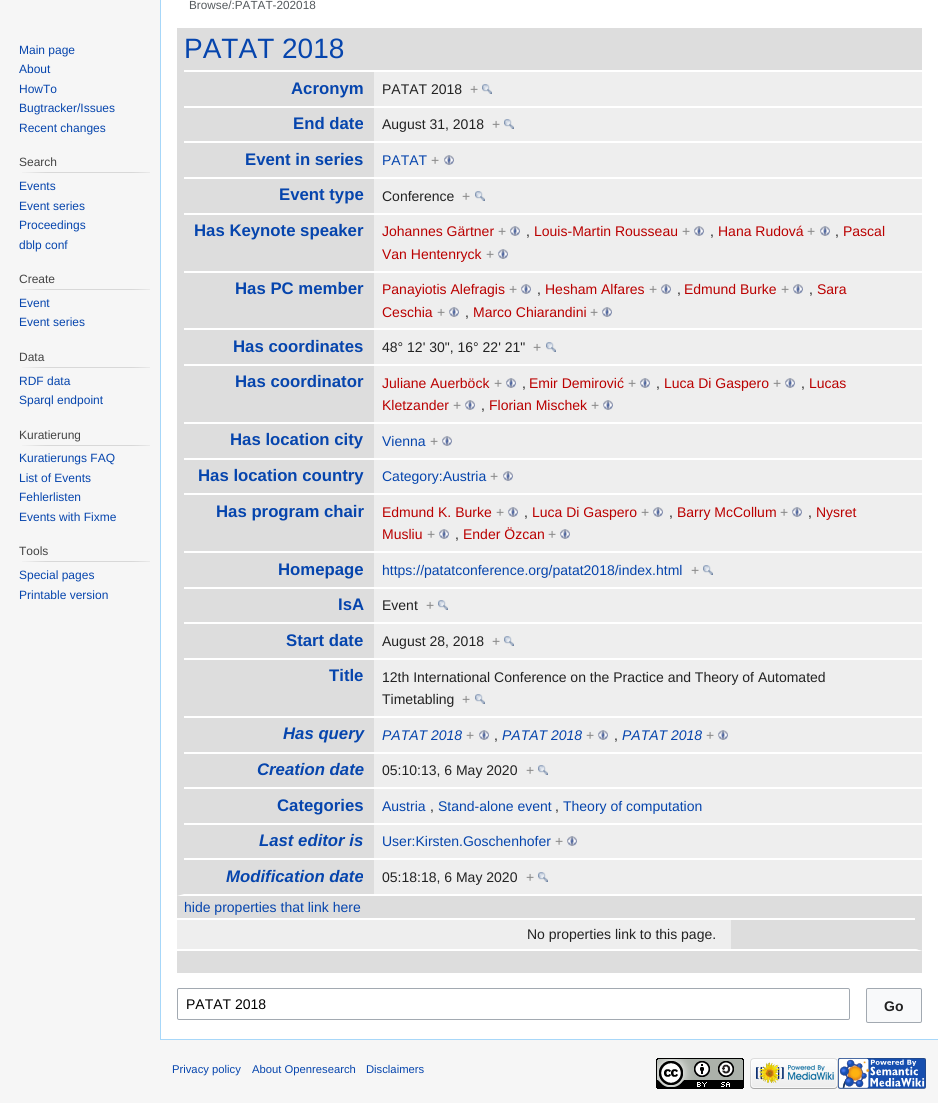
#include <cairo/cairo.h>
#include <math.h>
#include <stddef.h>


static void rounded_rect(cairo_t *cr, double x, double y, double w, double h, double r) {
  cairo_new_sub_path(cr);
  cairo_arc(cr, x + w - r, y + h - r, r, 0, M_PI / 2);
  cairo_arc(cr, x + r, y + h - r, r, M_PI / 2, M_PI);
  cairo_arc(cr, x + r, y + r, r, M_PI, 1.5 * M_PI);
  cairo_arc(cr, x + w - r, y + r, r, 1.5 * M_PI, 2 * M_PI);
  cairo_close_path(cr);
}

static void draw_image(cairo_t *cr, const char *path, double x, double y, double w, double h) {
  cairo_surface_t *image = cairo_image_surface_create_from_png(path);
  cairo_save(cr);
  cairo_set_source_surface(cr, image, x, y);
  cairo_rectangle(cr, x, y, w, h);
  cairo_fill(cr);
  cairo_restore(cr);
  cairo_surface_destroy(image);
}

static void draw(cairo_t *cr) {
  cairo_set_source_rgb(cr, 246 / 255.0, 246 / 255.0, 246 / 255.0);
  cairo_paint(cr);
  draw_image(cr, "images/1.png", 22, 172, 128, 1);
  draw_image(cr, "images/1.png", 22, 289, 128, 1);
  draw_image(cr, "images/1.png", 22, 367, 128, 1);
  draw_image(cr, "images/1.png", 22, 445, 128, 1);
  draw_image(cr, "images/1.png", 22, 561, 128, 1);
  cairo_set_source_rgb(cr, 1, 1, 1);
  cairo_rectangle(cr, 161, 0, 777, 1039);
  cairo_fill(cr);
  cairo_set_source_rgb(cr, 167 / 255.0, 215 / 255.0, 249 / 255.0);
  cairo_rectangle(cr, 160, 1039, 778, 1);
  cairo_fill(cr);
  cairo_rectangle(cr, 160, 0, 1, 1040);
  cairo_fill(cr);
  cairo_set_source_rgb(cr, 221 / 255.0, 221 / 255.0, 221 / 255.0);
  cairo_rectangle(cr, 177, 28, 745, 42);
  cairo_fill(cr);
  cairo_new_path(cr);
  cairo_move_to(cr, 177, 896);
  cairo_line_to(cr, 177, 70);
  cairo_line_to(cr, 184, 70);
  cairo_line_to(cr, 184, 894);
  cairo_close_path(cr);
  cairo_fill(cr);
  cairo_set_source_rgb(cr, 238 / 255.0, 238 / 255.0, 238 / 255.0);
  cairo_rectangle(cr, 374, 72, 548, 34);
  cairo_fill(cr);
  cairo_set_source_rgb(cr, 221 / 255.0, 221 / 255.0, 221 / 255.0);
  cairo_rectangle(cr, 184, 72, 190, 34);
  cairo_fill(cr);
  draw_image(cr, "images/2.png", 482, 84, 10, 10);
  cairo_set_source_rgb(cr, 238 / 255.0, 238 / 255.0, 238 / 255.0);
  cairo_rectangle(cr, 374, 108, 548, 33);
  cairo_fill(cr);
  cairo_set_source_rgb(cr, 221 / 255.0, 221 / 255.0, 221 / 255.0);
  cairo_rectangle(cr, 184, 108, 190, 33);
  cairo_fill(cr);
  draw_image(cr, "images/2.png", 504, 119, 10, 10);
  cairo_set_source_rgb(cr, 238 / 255.0, 238 / 255.0, 238 / 255.0);
  cairo_rectangle(cr, 374, 143, 548, 34);
  cairo_fill(cr);
  cairo_set_source_rgb(cr, 221 / 255.0, 221 / 255.0, 221 / 255.0);
  cairo_rectangle(cr, 184, 143, 190, 34);
  cairo_fill(cr);
  draw_image(cr, "images/3.png", 444, 155, 10, 10);
  cairo_set_source_rgb(cr, 238 / 255.0, 238 / 255.0, 238 / 255.0);
  cairo_rectangle(cr, 374, 179, 548, 34);
  cairo_fill(cr);
  cairo_set_source_rgb(cr, 221 / 255.0, 221 / 255.0, 221 / 255.0);
  cairo_rectangle(cr, 184, 179, 190, 34);
  cairo_fill(cr);
  draw_image(cr, "images/2.png", 475, 191, 10, 10);
  cairo_set_source_rgb(cr, 238 / 255.0, 238 / 255.0, 238 / 255.0);
  cairo_rectangle(cr, 374, 215, 548, 56);
  cairo_fill(cr);
  cairo_set_source_rgb(cr, 221 / 255.0, 221 / 255.0, 221 / 255.0);
  cairo_rectangle(cr, 184, 215, 190, 56);
  cairo_fill(cr);
  draw_image(cr, "images/4.png", 510, 226, 10, 10);
  draw_image(cr, "images/3.png", 694, 226, 10, 10);
  draw_image(cr, "images/3.png", 820, 226, 10, 10);
  draw_image(cr, "images/4.png", 498, 249, 10, 10);
  cairo_set_source_rgb(cr, 238 / 255.0, 238 / 255.0, 238 / 255.0);
  cairo_rectangle(cr, 374, 273, 548, 55);
  cairo_fill(cr);
  cairo_set_source_rgb(cr, 221 / 255.0, 221 / 255.0, 221 / 255.0);
  cairo_rectangle(cr, 184, 273, 190, 55);
  cairo_fill(cr);
  draw_image(cr, "images/4.png", 521, 284, 10, 10);
  draw_image(cr, "images/4.png", 661, 284, 10, 10);
  draw_image(cr, "images/4.png", 793, 284, 10, 10);
  draw_image(cr, "images/3.png", 449, 307, 10, 10);
  draw_image(cr, "images/3.png", 602, 307, 10, 10);
  cairo_set_source_rgb(cr, 238 / 255.0, 238 / 255.0, 238 / 255.0);
  cairo_rectangle(cr, 374, 330, 548, 34);
  cairo_fill(cr);
  cairo_set_source_rgb(cr, 221 / 255.0, 221 / 255.0, 221 / 255.0);
  cairo_rectangle(cr, 184, 330, 190, 34);
  cairo_fill(cr);
  draw_image(cr, "images/5.png", 546, 342, 10, 10);
  cairo_set_source_rgb(cr, 238 / 255.0, 238 / 255.0, 238 / 255.0);
  cairo_rectangle(cr, 374, 366, 548, 56);
  cairo_fill(cr);
  cairo_set_source_rgb(cr, 221 / 255.0, 221 / 255.0, 221 / 255.0);
  cairo_rectangle(cr, 184, 366, 190, 56);
  cairo_fill(cr);
  draw_image(cr, "images/6.png", 506, 378, 10, 10);
  draw_image(cr, "images/3.png", 640, 378, 10, 10);
  draw_image(cr, "images/4.png", 785, 378, 10, 10);
  draw_image(cr, "images/3.png", 465, 400, 10, 10);
  draw_image(cr, "images/3.png", 603, 400, 10, 10);
  cairo_set_source_rgb(cr, 238 / 255.0, 238 / 255.0, 238 / 255.0);
  cairo_rectangle(cr, 374, 424, 548, 34);
  cairo_fill(cr);
  cairo_set_source_rgb(cr, 221 / 255.0, 221 / 255.0, 221 / 255.0);
  cairo_rectangle(cr, 184, 424, 190, 34);
  cairo_fill(cr);
  draw_image(cr, "images/4.png", 442, 436, 10, 10);
  cairo_set_source_rgb(cr, 238 / 255.0, 238 / 255.0, 238 / 255.0);
  cairo_rectangle(cr, 374, 460, 548, 33);
  cairo_fill(cr);
  cairo_set_source_rgb(cr, 221 / 255.0, 221 / 255.0, 221 / 255.0);
  cairo_rectangle(cr, 184, 460, 190, 33);
  cairo_fill(cr);
  draw_image(cr, "images/4.png", 503, 471, 10, 10);
  cairo_set_source_rgb(cr, 238 / 255.0, 238 / 255.0, 238 / 255.0);
  cairo_rectangle(cr, 374, 495, 548, 56);
  cairo_fill(cr);
  cairo_set_source_rgb(cr, 221 / 255.0, 221 / 255.0, 221 / 255.0);
  cairo_rectangle(cr, 184, 495, 190, 56);
  cairo_fill(cr);
  draw_image(cr, "images/4.png", 508, 507, 10, 10);
  draw_image(cr, "images/4.png", 653, 507, 10, 10);
  draw_image(cr, "images/4.png", 792, 507, 10, 10);
  draw_image(cr, "images/3.png", 439, 529, 10, 10);
  draw_image(cr, "images/4.png", 560, 529, 10, 10);
  cairo_set_source_rgb(cr, 238 / 255.0, 238 / 255.0, 238 / 255.0);
  cairo_rectangle(cr, 374, 553, 548, 34);
  cairo_fill(cr);
  cairo_set_source_rgb(cr, 221 / 255.0, 221 / 255.0, 221 / 255.0);
  cairo_rectangle(cr, 184, 553, 190, 34);
  cairo_fill(cr);
  draw_image(cr, "images/5.png", 703, 565, 10, 10);
  cairo_set_source_rgb(cr, 238 / 255.0, 238 / 255.0, 238 / 255.0);
  cairo_rectangle(cr, 374, 589, 548, 33);
  cairo_fill(cr);
  cairo_set_source_rgb(cr, 221 / 255.0, 221 / 255.0, 221 / 255.0);
  cairo_rectangle(cr, 184, 589, 190, 33);
  cairo_fill(cr);
  draw_image(cr, "images/2.png", 438, 600, 10, 10);
  cairo_set_source_rgb(cr, 238 / 255.0, 238 / 255.0, 238 / 255.0);
  cairo_rectangle(cr, 374, 624, 548, 34);
  cairo_fill(cr);
  cairo_set_source_rgb(cr, 221 / 255.0, 221 / 255.0, 221 / 255.0);
  cairo_rectangle(cr, 184, 624, 190, 34);
  cairo_fill(cr);
  draw_image(cr, "images/2.png", 504, 636, 10, 10);
  cairo_set_source_rgb(cr, 238 / 255.0, 238 / 255.0, 238 / 255.0);
  cairo_rectangle(cr, 374, 660, 548, 56);
  cairo_fill(cr);
  cairo_set_source_rgb(cr, 221 / 255.0, 221 / 255.0, 221 / 255.0);
  cairo_rectangle(cr, 184, 660, 190, 56);
  cairo_fill(cr);
  draw_image(cr, "images/2.png", 475, 694, 10, 10);
  cairo_set_source_rgb(cr, 238 / 255.0, 238 / 255.0, 238 / 255.0);
  cairo_rectangle(cr, 374, 718, 548, 34);
  cairo_fill(cr);
  cairo_set_source_rgb(cr, 221 / 255.0, 221 / 255.0, 221 / 255.0);
  cairo_rectangle(cr, 184, 718, 190, 34);
  cairo_fill(cr);
  draw_image(cr, "images/4.png", 479, 730, 10, 10);
  draw_image(cr, "images/3.png", 598, 730, 10, 10);
  draw_image(cr, "images/3.png", 718, 730, 10, 10);
  cairo_set_source_rgb(cr, 238 / 255.0, 238 / 255.0, 238 / 255.0);
  cairo_rectangle(cr, 374, 754, 548, 33);
  cairo_fill(cr);
  cairo_set_source_rgb(cr, 221 / 255.0, 221 / 255.0, 221 / 255.0);
  cairo_rectangle(cr, 184, 754, 190, 33);
  cairo_fill(cr);
  draw_image(cr, "images/2.png", 538, 765, 10, 10);
  cairo_set_source_rgb(cr, 238 / 255.0, 238 / 255.0, 238 / 255.0);
  cairo_rectangle(cr, 374, 789, 548, 34);
  cairo_fill(cr);
  cairo_set_source_rgb(cr, 221 / 255.0, 221 / 255.0, 221 / 255.0);
  cairo_rectangle(cr, 184, 789, 190, 34);
  cairo_fill(cr);
  cairo_set_source_rgb(cr, 238 / 255.0, 238 / 255.0, 238 / 255.0);
  cairo_rectangle(cr, 374, 825, 548, 33);
  cairo_fill(cr);
  cairo_set_source_rgb(cr, 221 / 255.0, 221 / 255.0, 221 / 255.0);
  cairo_rectangle(cr, 184, 825, 190, 33);
  cairo_fill(cr);
  draw_image(cr, "images/3.png", 567, 836, 10, 10);
  cairo_set_source_rgb(cr, 238 / 255.0, 238 / 255.0, 238 / 255.0);
  cairo_rectangle(cr, 374, 860, 548, 34);
  cairo_fill(cr);
  cairo_set_source_rgb(cr, 221 / 255.0, 221 / 255.0, 221 / 255.0);
  cairo_rectangle(cr, 184, 860, 190, 34);
  cairo_fill(cr);
  draw_image(cr, "images/2.png", 538, 872, 10, 10);
  cairo_rectangle(cr, 177, 896, 745, 22);
  cairo_fill(cr);
  cairo_new_path(cr);
  cairo_move_to(cr, 922, 918);
  cairo_line_to(cr, 922, 951);
  cairo_line_to(cr, 915, 949);
  cairo_line_to(cr, 915, 918);
  cairo_close_path(cr);
  cairo_fill(cr);
  cairo_set_source_rgb(cr, 1, 1, 1);
  cairo_new_path(cr);
  cairo_move_to(cr, 922, 951);
  cairo_line_to(cr, 177, 951);
  cairo_line_to(cr, 177, 949);
  cairo_line_to(cr, 915, 949);
  cairo_close_path(cr);
  cairo_fill(cr);
  cairo_set_source_rgb(cr, 238 / 255.0, 238 / 255.0, 238 / 255.0);
  cairo_rectangle(cr, 177, 920, 554, 29);
  cairo_fill(cr);
  cairo_set_source_rgb(cr, 221 / 255.0, 221 / 255.0, 221 / 255.0);
  cairo_rectangle(cr, 731, 920, 184, 29);
  cairo_fill(cr);
  cairo_rectangle(cr, 177, 951, 745, 22);
  cairo_fill(cr);
  rounded_rect(cr, 177.5, 988.5, 672, 31, 1.5);
  cairo_set_source_rgb(cr, 162 / 255.0, 169 / 255.0, 177 / 255.0);
  cairo_set_line_width(cr, 1);
  cairo_stroke(cr);
  cairo_set_source_rgb(cr, 248 / 255.0, 249 / 255.0, 250 / 255.0);
  rounded_rect(cr, 866.5, 988.5, 55, 34, 1.5);
  cairo_fill_preserve(cr);
  cairo_set_source_rgb(cr, 162 / 255.0, 169 / 255.0, 177 / 255.0);
  cairo_stroke(cr);
  draw_image(cr, "images/7.png", 656, 1058, 88, 31);
  draw_image(cr, "images/8.png", 750, 1058, 88, 31);
  draw_image(cr, "images/9.png", 838, 1058, 88, 31);
  cairo_select_font_face(cr, "Liberation Sans", CAIRO_FONT_SLANT_NORMAL, CAIRO_FONT_WEIGHT_NORMAL);
  cairo_set_font_size(cr, 12);
  cairo_set_source_rgb(cr, 6 / 255.0, 69 / 255.0, 173 / 255.0);
  cairo_move_to(cr, 19, 54);
  cairo_show_text(cr, "Main page");
  cairo_move_to(cr, 19, 73);
  cairo_show_text(cr, "About");
  cairo_move_to(cr, 19, 93);
  cairo_show_text(cr, "HowTo");
  cairo_move_to(cr, 19, 112);
  cairo_show_text(cr, "Bugtracker/Issues");
  cairo_move_to(cr, 19, 132);
  cairo_show_text(cr, "Recent changes");
  cairo_set_source_rgb(cr, 68 / 255.0, 68 / 255.0, 68 / 255.0);
  cairo_move_to(cr, 19, 166);
  cairo_show_text(cr, "Search");
  cairo_set_source_rgb(cr, 6 / 255.0, 69 / 255.0, 173 / 255.0);
  cairo_move_to(cr, 19, 190);
  cairo_show_text(cr, "Events");
  cairo_move_to(cr, 19, 210);
  cairo_show_text(cr, "Event series");
  cairo_move_to(cr, 19, 229);
  cairo_show_text(cr, "Proceedings");
  cairo_move_to(cr, 19, 249);
  cairo_show_text(cr, "dblp conf");
  cairo_set_source_rgb(cr, 68 / 255.0, 68 / 255.0, 68 / 255.0);
  cairo_move_to(cr, 19, 283);
  cairo_show_text(cr, "Create");
  cairo_set_source_rgb(cr, 6 / 255.0, 69 / 255.0, 173 / 255.0);
  cairo_move_to(cr, 19, 307);
  cairo_show_text(cr, "Event");
  cairo_move_to(cr, 19, 326);
  cairo_show_text(cr, "Event series");
  cairo_set_source_rgb(cr, 68 / 255.0, 68 / 255.0, 68 / 255.0);
  cairo_move_to(cr, 19, 361);
  cairo_show_text(cr, "Data");
  cairo_set_source_rgb(cr, 6 / 255.0, 69 / 255.0, 173 / 255.0);
  cairo_move_to(cr, 19, 385);
  cairo_show_text(cr, "RDF data");
  cairo_move_to(cr, 19, 404);
  cairo_show_text(cr, "Sparql endpoint");
  cairo_set_source_rgb(cr, 68 / 255.0, 68 / 255.0, 68 / 255.0);
  cairo_move_to(cr, 19, 439);
  cairo_show_text(cr, "Kuratierung");
  cairo_set_source_rgb(cr, 6 / 255.0, 69 / 255.0, 173 / 255.0);
  cairo_move_to(cr, 19, 462);
  cairo_show_text(cr, "Kuratierungs FAQ");
  cairo_move_to(cr, 19, 482);
  cairo_show_text(cr, "List of Events");
  cairo_move_to(cr, 19, 501);
  cairo_show_text(cr, "Fehlerlisten");
  cairo_move_to(cr, 19, 521);
  cairo_show_text(cr, "Events with Fixme");
  cairo_set_source_rgb(cr, 68 / 255.0, 68 / 255.0, 68 / 255.0);
  cairo_move_to(cr, 19, 555);
  cairo_show_text(cr, "Tools");
  cairo_set_source_rgb(cr, 6 / 255.0, 69 / 255.0, 173 / 255.0);
  cairo_move_to(cr, 19, 579);
  cairo_show_text(cr, "Special pages");
  cairo_move_to(cr, 19, 599);
  cairo_show_text(cr, "Printable version");
  cairo_set_font_size(cr, 11.75);
  cairo_set_source_rgb(cr, 84 / 255.0, 89 / 255.0, 93 / 255.0);
  cairo_move_to(cr, 189, 9);
  cairo_show_text(cr, "Browse/:PATAT-202018");
  cairo_set_font_size(cr, 28);
  cairo_set_source_rgb(cr, 6 / 255.0, 69 / 255.0, 173 / 255.0);
  cairo_move_to(cr, 184, 58);
  cairo_show_text(cr, "PATAT 2018");
  cairo_select_font_face(cr, "Liberation Sans", CAIRO_FONT_SLANT_NORMAL, CAIRO_FONT_WEIGHT_BOLD);
  cairo_set_font_size(cr, 16.75);
  cairo_move_to(cr, 291, 94);
  cairo_show_text(cr, "Acronym");
  cairo_select_font_face(cr, "Liberation Sans", CAIRO_FONT_SLANT_NORMAL, CAIRO_FONT_WEIGHT_NORMAL);
  cairo_set_font_size(cr, 14);
  cairo_set_source_rgb(cr, 34 / 255.0, 34 / 255.0, 34 / 255.0);
  cairo_move_to(cr, 382, 94);
  cairo_show_text(cr, "PATAT 2018");
  cairo_set_source_rgb(cr, 136 / 255.0, 136 / 255.0, 136 / 255.0);
  cairo_move_to(cr, 470, 94);
  cairo_show_text(cr, "+");
  cairo_select_font_face(cr, "Liberation Sans", CAIRO_FONT_SLANT_NORMAL, CAIRO_FONT_WEIGHT_BOLD);
  cairo_set_font_size(cr, 16.75);
  cairo_set_source_rgb(cr, 6 / 255.0, 69 / 255.0, 173 / 255.0);
  cairo_move_to(cr, 293, 129);
  cairo_show_text(cr, "End date");
  cairo_select_font_face(cr, "Liberation Sans", CAIRO_FONT_SLANT_NORMAL, CAIRO_FONT_WEIGHT_NORMAL);
  cairo_set_font_size(cr, 14);
  cairo_set_source_rgb(cr, 34 / 255.0, 34 / 255.0, 34 / 255.0);
  cairo_move_to(cr, 382, 129);
  cairo_show_text(cr, "August 31, 2018");
  cairo_set_source_rgb(cr, 136 / 255.0, 136 / 255.0, 136 / 255.0);
  cairo_move_to(cr, 492, 129);
  cairo_show_text(cr, "+");
  cairo_select_font_face(cr, "Liberation Sans", CAIRO_FONT_SLANT_NORMAL, CAIRO_FONT_WEIGHT_BOLD);
  cairo_set_font_size(cr, 16.75);
  cairo_set_source_rgb(cr, 6 / 255.0, 69 / 255.0, 173 / 255.0);
  cairo_move_to(cr, 245, 165);
  cairo_show_text(cr, "Event in series");
  cairo_select_font_face(cr, "Liberation Sans", CAIRO_FONT_SLANT_NORMAL, CAIRO_FONT_WEIGHT_NORMAL);
  cairo_set_font_size(cr, 14);
  cairo_move_to(cr, 382, 165);
  cairo_show_text(cr, "PATAT");
  cairo_set_source_rgb(cr, 136 / 255.0, 136 / 255.0, 136 / 255.0);
  cairo_move_to(cr, 431, 165);
  cairo_show_text(cr, "+");
  cairo_select_font_face(cr, "Liberation Sans", CAIRO_FONT_SLANT_NORMAL, CAIRO_FONT_WEIGHT_BOLD);
  cairo_set_font_size(cr, 16.75);
  cairo_set_source_rgb(cr, 6 / 255.0, 69 / 255.0, 173 / 255.0);
  cairo_move_to(cr, 279, 200);
  cairo_show_text(cr, "Event type");
  cairo_select_font_face(cr, "Liberation Sans", CAIRO_FONT_SLANT_NORMAL, CAIRO_FONT_WEIGHT_NORMAL);
  cairo_set_font_size(cr, 14);
  cairo_set_source_rgb(cr, 34 / 255.0, 34 / 255.0, 34 / 255.0);
  cairo_move_to(cr, 382, 201);
  cairo_show_text(cr, "Conference");
  cairo_set_source_rgb(cr, 136 / 255.0, 136 / 255.0, 136 / 255.0);
  cairo_move_to(cr, 462, 201);
  cairo_show_text(cr, "+");
  cairo_select_font_face(cr, "Liberation Sans", CAIRO_FONT_SLANT_NORMAL, CAIRO_FONT_WEIGHT_BOLD);
  cairo_set_font_size(cr, 16.75);
  cairo_set_source_rgb(cr, 6 / 255.0, 69 / 255.0, 173 / 255.0);
  cairo_move_to(cr, 194, 236);
  cairo_show_text(cr, "Has Keynote speaker");
  cairo_select_font_face(cr, "Liberation Sans", CAIRO_FONT_SLANT_NORMAL, CAIRO_FONT_WEIGHT_NORMAL);
  cairo_set_font_size(cr, 14);
  cairo_set_source_rgb(cr, 186 / 255.0, 0, 0);
  cairo_move_to(cr, 382, 236);
  cairo_show_text(cr, "Johannes Gärtner");
  cairo_set_source_rgb(cr, 136 / 255.0, 136 / 255.0, 136 / 255.0);
  cairo_move_to(cr, 498, 236);
  cairo_show_text(cr, "+");
  cairo_set_source_rgb(cr, 186 / 255.0, 0, 0);
  cairo_move_to(cr, 534, 236);
  cairo_show_text(cr, "Louis-Martin Rousseau");
  cairo_set_source_rgb(cr, 136 / 255.0, 136 / 255.0, 136 / 255.0);
  cairo_move_to(cr, 682, 236);
  cairo_show_text(cr, "+");
  cairo_set_source_rgb(cr, 186 / 255.0, 0, 0);
  cairo_move_to(cr, 718, 236);
  cairo_show_text(cr, "Hana Rudová");
  cairo_set_source_rgb(cr, 136 / 255.0, 136 / 255.0, 136 / 255.0);
  cairo_move_to(cr, 807, 236);
  cairo_show_text(cr, "+");
  cairo_set_source_rgb(cr, 186 / 255.0, 0, 0);
  cairo_move_to(cr, 843, 236);
  cairo_show_text(cr, "Pascal");
  cairo_set_source_rgb(cr, 34 / 255.0, 34 / 255.0, 34 / 255.0);
  cairo_move_to(cr, 526, 236);
  cairo_show_text(cr, ",");
  cairo_move_to(cr, 710, 236);
  cairo_show_text(cr, ",");
  cairo_move_to(cr, 835, 236);
  cairo_show_text(cr, ",");
  cairo_set_source_rgb(cr, 186 / 255.0, 0, 0);
  cairo_move_to(cr, 382, 259);
  cairo_show_text(cr, "Van Hentenryck");
  cairo_set_source_rgb(cr, 136 / 255.0, 136 / 255.0, 136 / 255.0);
  cairo_move_to(cr, 486, 259);
  cairo_show_text(cr, "+");
  cairo_select_font_face(cr, "Liberation Sans", CAIRO_FONT_SLANT_NORMAL, CAIRO_FONT_WEIGHT_BOLD);
  cairo_set_font_size(cr, 16.75);
  cairo_set_source_rgb(cr, 6 / 255.0, 69 / 255.0, 173 / 255.0);
  cairo_move_to(cr, 235, 294);
  cairo_show_text(cr, "Has PC member");
  cairo_select_font_face(cr, "Liberation Sans", CAIRO_FONT_SLANT_NORMAL, CAIRO_FONT_WEIGHT_NORMAL);
  cairo_set_font_size(cr, 14);
  cairo_set_source_rgb(cr, 186 / 255.0, 0, 0);
  cairo_move_to(cr, 382, 294);
  cairo_show_text(cr, "Panayiotis Alefragis");
  cairo_set_source_rgb(cr, 136 / 255.0, 136 / 255.0, 136 / 255.0);
  cairo_move_to(cr, 509, 294);
  cairo_show_text(cr, "+");
  cairo_set_source_rgb(cr, 186 / 255.0, 0, 0);
  cairo_move_to(cr, 545, 294);
  cairo_show_text(cr, "Hesham Alfares");
  cairo_set_source_rgb(cr, 136 / 255.0, 136 / 255.0, 136 / 255.0);
  cairo_move_to(cr, 649, 294);
  cairo_show_text(cr, "+");
  cairo_set_source_rgb(cr, 186 / 255.0, 0, 0);
  cairo_move_to(cr, 684, 294);
  cairo_show_text(cr, "Edmund Burke");
  cairo_set_source_rgb(cr, 136 / 255.0, 136 / 255.0, 136 / 255.0);
  cairo_move_to(cr, 781, 294);
  cairo_show_text(cr, "+");
  cairo_set_source_rgb(cr, 186 / 255.0, 0, 0);
  cairo_move_to(cr, 817, 294);
  cairo_show_text(cr, "Sara");
  cairo_set_source_rgb(cr, 34 / 255.0, 34 / 255.0, 34 / 255.0);
  cairo_move_to(cr, 537, 294);
  cairo_show_text(cr, ",");
  cairo_move_to(cr, 677, 294);
  cairo_show_text(cr, ",");
  cairo_move_to(cr, 809, 294);
  cairo_show_text(cr, ",");
  cairo_set_source_rgb(cr, 186 / 255.0, 0, 0);
  cairo_move_to(cr, 382, 317);
  cairo_show_text(cr, "Ceschia");
  cairo_set_source_rgb(cr, 136 / 255.0, 136 / 255.0, 136 / 255.0);
  cairo_move_to(cr, 437, 317);
  cairo_show_text(cr, "+");
  cairo_set_source_rgb(cr, 186 / 255.0, 0, 0);
  cairo_move_to(cr, 473, 317);
  cairo_show_text(cr, "Marco Chiarandini");
  cairo_set_source_rgb(cr, 136 / 255.0, 136 / 255.0, 136 / 255.0);
  cairo_move_to(cr, 590, 317);
  cairo_show_text(cr, "+");
  cairo_set_source_rgb(cr, 34 / 255.0, 34 / 255.0, 34 / 255.0);
  cairo_move_to(cr, 465, 317);
  cairo_show_text(cr, ",");
  cairo_select_font_face(cr, "Liberation Sans", CAIRO_FONT_SLANT_NORMAL, CAIRO_FONT_WEIGHT_BOLD);
  cairo_set_font_size(cr, 16.75);
  cairo_set_source_rgb(cr, 6 / 255.0, 69 / 255.0, 173 / 255.0);
  cairo_move_to(cr, 233, 352);
  cairo_show_text(cr, "Has coordinates");
  cairo_select_font_face(cr, "Liberation Sans", CAIRO_FONT_SLANT_NORMAL, CAIRO_FONT_WEIGHT_NORMAL);
  cairo_set_font_size(cr, 14);
  cairo_set_source_rgb(cr, 34 / 255.0, 34 / 255.0, 34 / 255.0);
  cairo_move_to(cr, 382, 352);
  cairo_show_text(cr, "48° 12' 30\", 16° 22' 21\"");
  cairo_set_source_rgb(cr, 136 / 255.0, 136 / 255.0, 136 / 255.0);
  cairo_move_to(cr, 533, 352);
  cairo_show_text(cr, "+");
  cairo_select_font_face(cr, "Liberation Sans", CAIRO_FONT_SLANT_NORMAL, CAIRO_FONT_WEIGHT_BOLD);
  cairo_set_font_size(cr, 16.75);
  cairo_set_source_rgb(cr, 6 / 255.0, 69 / 255.0, 173 / 255.0);
  cairo_move_to(cr, 235, 387);
  cairo_show_text(cr, "Has coordinator");
  cairo_select_font_face(cr, "Liberation Sans", CAIRO_FONT_SLANT_NORMAL, CAIRO_FONT_WEIGHT_NORMAL);
  cairo_set_font_size(cr, 14);
  cairo_set_source_rgb(cr, 186 / 255.0, 0, 0);
  cairo_move_to(cr, 382, 388);
  cairo_show_text(cr, "Juliane Auerböck");
  cairo_set_source_rgb(cr, 136 / 255.0, 136 / 255.0, 136 / 255.0);
  cairo_move_to(cr, 494, 388);
  cairo_show_text(cr, "+");
  cairo_set_source_rgb(cr, 186 / 255.0, 0, 0);
  cairo_move_to(cr, 529, 388);
  cairo_show_text(cr, "Emir Demirović");
  cairo_set_source_rgb(cr, 136 / 255.0, 136 / 255.0, 136 / 255.0);
  cairo_move_to(cr, 628, 388);
  cairo_show_text(cr, "+");
  cairo_set_source_rgb(cr, 186 / 255.0, 0, 0);
  cairo_move_to(cr, 664, 388);
  cairo_show_text(cr, "Luca Di Gaspero");
  cairo_set_source_rgb(cr, 136 / 255.0, 136 / 255.0, 136 / 255.0);
  cairo_move_to(cr, 773, 388);
  cairo_show_text(cr, "+");
  cairo_set_source_rgb(cr, 186 / 255.0, 0, 0);
  cairo_move_to(cr, 809, 388);
  cairo_show_text(cr, "Lucas");
  cairo_set_source_rgb(cr, 34 / 255.0, 34 / 255.0, 34 / 255.0);
  cairo_move_to(cr, 522, 388);
  cairo_show_text(cr, ",");
  cairo_move_to(cr, 656, 388);
  cairo_show_text(cr, ",");
  cairo_move_to(cr, 801, 388);
  cairo_show_text(cr, ",");
  cairo_set_source_rgb(cr, 186 / 255.0, 0, 0);
  cairo_move_to(cr, 382, 410);
  cairo_show_text(cr, "Kletzander");
  cairo_set_source_rgb(cr, 136 / 255.0, 136 / 255.0, 136 / 255.0);
  cairo_move_to(cr, 453, 410);
  cairo_show_text(cr, "+");
  cairo_set_source_rgb(cr, 186 / 255.0, 0, 0);
  cairo_move_to(cr, 489, 410);
  cairo_show_text(cr, "Florian Mischek");
  cairo_set_source_rgb(cr, 136 / 255.0, 136 / 255.0, 136 / 255.0);
  cairo_move_to(cr, 591, 410);
  cairo_show_text(cr, "+");
  cairo_set_source_rgb(cr, 34 / 255.0, 34 / 255.0, 34 / 255.0);
  cairo_move_to(cr, 481, 410);
  cairo_show_text(cr, ",");
  cairo_select_font_face(cr, "Liberation Sans", CAIRO_FONT_SLANT_NORMAL, CAIRO_FONT_WEIGHT_BOLD);
  cairo_set_font_size(cr, 16.75);
  cairo_set_source_rgb(cr, 6 / 255.0, 69 / 255.0, 173 / 255.0);
  cairo_move_to(cr, 230, 445);
  cairo_show_text(cr, "Has location city");
  cairo_select_font_face(cr, "Liberation Sans", CAIRO_FONT_SLANT_NORMAL, CAIRO_FONT_WEIGHT_NORMAL);
  cairo_set_font_size(cr, 14);
  cairo_move_to(cr, 382, 446);
  cairo_show_text(cr, "Vienna");
  cairo_set_source_rgb(cr, 136 / 255.0, 136 / 255.0, 136 / 255.0);
  cairo_move_to(cr, 430, 446);
  cairo_show_text(cr, "+");
  cairo_select_font_face(cr, "Liberation Sans", CAIRO_FONT_SLANT_NORMAL, CAIRO_FONT_WEIGHT_BOLD);
  cairo_set_font_size(cr, 16.75);
  cairo_set_source_rgb(cr, 6 / 255.0, 69 / 255.0, 173 / 255.0);
  cairo_move_to(cr, 198, 481);
  cairo_show_text(cr, "Has location country");
  cairo_select_font_face(cr, "Liberation Sans", CAIRO_FONT_SLANT_NORMAL, CAIRO_FONT_WEIGHT_NORMAL);
  cairo_set_font_size(cr, 14);
  cairo_move_to(cr, 382, 481);
  cairo_show_text(cr, "Category:Austria");
  cairo_set_source_rgb(cr, 136 / 255.0, 136 / 255.0, 136 / 255.0);
  cairo_move_to(cr, 490, 481);
  cairo_show_text(cr, "+");
  cairo_select_font_face(cr, "Liberation Sans", CAIRO_FONT_SLANT_NORMAL, CAIRO_FONT_WEIGHT_BOLD);
  cairo_set_font_size(cr, 16.75);
  cairo_set_source_rgb(cr, 6 / 255.0, 69 / 255.0, 173 / 255.0);
  cairo_move_to(cr, 216, 517);
  cairo_show_text(cr, "Has program chair");
  cairo_select_font_face(cr, "Liberation Sans", CAIRO_FONT_SLANT_NORMAL, CAIRO_FONT_WEIGHT_NORMAL);
  cairo_set_font_size(cr, 14);
  cairo_set_source_rgb(cr, 186 / 255.0, 0, 0);
  cairo_move_to(cr, 382, 517);
  cairo_show_text(cr, "Edmund K. Burke");
  cairo_set_source_rgb(cr, 136 / 255.0, 136 / 255.0, 136 / 255.0);
  cairo_move_to(cr, 496, 517);
  cairo_show_text(cr, "+");
  cairo_set_source_rgb(cr, 186 / 255.0, 0, 0);
  cairo_move_to(cr, 532, 517);
  cairo_show_text(cr, "Luca Di Gaspero");
  cairo_set_source_rgb(cr, 136 / 255.0, 136 / 255.0, 136 / 255.0);
  cairo_move_to(cr, 641, 517);
  cairo_show_text(cr, "+");
  cairo_set_source_rgb(cr, 186 / 255.0, 0, 0);
  cairo_move_to(cr, 677, 517);
  cairo_show_text(cr, "Barry McCollum");
  cairo_set_source_rgb(cr, 136 / 255.0, 136 / 255.0, 136 / 255.0);
  cairo_move_to(cr, 780, 517);
  cairo_show_text(cr, "+");
  cairo_set_source_rgb(cr, 186 / 255.0, 0, 0);
  cairo_move_to(cr, 816, 517);
  cairo_show_text(cr, "Nysret");
  cairo_set_source_rgb(cr, 34 / 255.0, 34 / 255.0, 34 / 255.0);
  cairo_move_to(cr, 524, 517);
  cairo_show_text(cr, ",");
  cairo_move_to(cr, 669, 517);
  cairo_show_text(cr, ",");
  cairo_move_to(cr, 808, 517);
  cairo_show_text(cr, ",");
  cairo_set_source_rgb(cr, 186 / 255.0, 0, 0);
  cairo_move_to(cr, 382, 539);
  cairo_show_text(cr, "Musliu");
  cairo_set_source_rgb(cr, 136 / 255.0, 136 / 255.0, 136 / 255.0);
  cairo_move_to(cr, 427, 539);
  cairo_show_text(cr, "+");
  cairo_set_source_rgb(cr, 186 / 255.0, 0, 0);
  cairo_move_to(cr, 463, 539);
  cairo_show_text(cr, "Ender Özcan");
  cairo_set_source_rgb(cr, 136 / 255.0, 136 / 255.0, 136 / 255.0);
  cairo_move_to(cr, 548, 539);
  cairo_show_text(cr, "+");
  cairo_set_source_rgb(cr, 34 / 255.0, 34 / 255.0, 34 / 255.0);
  cairo_move_to(cr, 455, 539);
  cairo_show_text(cr, ",");
  cairo_select_font_face(cr, "Liberation Sans", CAIRO_FONT_SLANT_NORMAL, CAIRO_FONT_WEIGHT_BOLD);
  cairo_set_font_size(cr, 16.75);
  cairo_set_source_rgb(cr, 6 / 255.0, 69 / 255.0, 173 / 255.0);
  cairo_move_to(cr, 278, 575);
  cairo_show_text(cr, "Homepage");
  cairo_select_font_face(cr, "Liberation Sans", CAIRO_FONT_SLANT_NORMAL, CAIRO_FONT_WEIGHT_NORMAL);
  cairo_set_font_size(cr, 14);
  cairo_move_to(cr, 382, 575);
  cairo_show_text(cr, "https://patatconference.org/patat2018/index.html");
  cairo_set_source_rgb(cr, 136 / 255.0, 136 / 255.0, 136 / 255.0);
  cairo_move_to(cr, 691, 575);
  cairo_show_text(cr, "+");
  cairo_select_font_face(cr, "Liberation Sans", CAIRO_FONT_SLANT_NORMAL, CAIRO_FONT_WEIGHT_BOLD);
  cairo_set_font_size(cr, 16.75);
  cairo_set_source_rgb(cr, 6 / 255.0, 69 / 255.0, 173 / 255.0);
  cairo_move_to(cr, 338, 610);
  cairo_show_text(cr, "IsA");
  cairo_select_font_face(cr, "Liberation Sans", CAIRO_FONT_SLANT_NORMAL, CAIRO_FONT_WEIGHT_NORMAL);
  cairo_set_font_size(cr, 14);
  cairo_set_source_rgb(cr, 34 / 255.0, 34 / 255.0, 34 / 255.0);
  cairo_move_to(cr, 382, 610);
  cairo_show_text(cr, "Event");
  cairo_set_source_rgb(cr, 136 / 255.0, 136 / 255.0, 136 / 255.0);
  cairo_move_to(cr, 426, 610);
  cairo_show_text(cr, "+");
  cairo_select_font_face(cr, "Liberation Sans", CAIRO_FONT_SLANT_NORMAL, CAIRO_FONT_WEIGHT_BOLD);
  cairo_set_font_size(cr, 16.75);
  cairo_set_source_rgb(cr, 6 / 255.0, 69 / 255.0, 173 / 255.0);
  cairo_move_to(cr, 286, 646);
  cairo_show_text(cr, "Start date");
  cairo_select_font_face(cr, "Liberation Sans", CAIRO_FONT_SLANT_NORMAL, CAIRO_FONT_WEIGHT_NORMAL);
  cairo_set_font_size(cr, 14);
  cairo_set_source_rgb(cr, 34 / 255.0, 34 / 255.0, 34 / 255.0);
  cairo_move_to(cr, 382, 646);
  cairo_show_text(cr, "August 28, 2018");
  cairo_set_source_rgb(cr, 136 / 255.0, 136 / 255.0, 136 / 255.0);
  cairo_move_to(cr, 492, 646);
  cairo_show_text(cr, "+");
  cairo_select_font_face(cr, "Liberation Sans", CAIRO_FONT_SLANT_NORMAL, CAIRO_FONT_WEIGHT_BOLD);
  cairo_set_font_size(cr, 16.75);
  cairo_set_source_rgb(cr, 6 / 255.0, 69 / 255.0, 173 / 255.0);
  cairo_move_to(cr, 329, 681);
  cairo_show_text(cr, "Title");
  cairo_select_font_face(cr, "Liberation Sans", CAIRO_FONT_SLANT_NORMAL, CAIRO_FONT_WEIGHT_NORMAL);
  cairo_set_font_size(cr, 14);
  cairo_set_source_rgb(cr, 34 / 255.0, 34 / 255.0, 34 / 255.0);
  cairo_move_to(cr, 382, 682);
  cairo_show_text(cr, "12th International Conference on the Practice and Theory of Automated");
  cairo_move_to(cr, 382, 704);
  cairo_show_text(cr, "Timetabling");
  cairo_set_source_rgb(cr, 136 / 255.0, 136 / 255.0, 136 / 255.0);
  cairo_move_to(cr, 462, 704);
  cairo_show_text(cr, "+");
  cairo_select_font_face(cr, "Liberation Sans", CAIRO_FONT_SLANT_ITALIC, CAIRO_FONT_WEIGHT_BOLD);
  cairo_set_font_size(cr, 16.75);
  cairo_set_source_rgb(cr, 6 / 255.0, 69 / 255.0, 173 / 255.0);
  cairo_move_to(cr, 283, 739);
  cairo_show_text(cr, "Has query");
  cairo_select_font_face(cr, "Liberation Sans", CAIRO_FONT_SLANT_ITALIC, CAIRO_FONT_WEIGHT_NORMAL);
  cairo_set_font_size(cr, 14);
  cairo_move_to(cr, 382, 740);
  cairo_show_text(cr, "PATAT 2018");
  cairo_select_font_face(cr, "Liberation Sans", CAIRO_FONT_SLANT_NORMAL, CAIRO_FONT_WEIGHT_NORMAL);
  cairo_set_source_rgb(cr, 136 / 255.0, 136 / 255.0, 136 / 255.0);
  cairo_move_to(cr, 466, 740);
  cairo_show_text(cr, "+");
  cairo_select_font_face(cr, "Liberation Sans", CAIRO_FONT_SLANT_ITALIC, CAIRO_FONT_WEIGHT_NORMAL);
  cairo_set_source_rgb(cr, 6 / 255.0, 69 / 255.0, 173 / 255.0);
  cairo_move_to(cr, 502, 740);
  cairo_show_text(cr, "PATAT 2018");
  cairo_select_font_face(cr, "Liberation Sans", CAIRO_FONT_SLANT_NORMAL, CAIRO_FONT_WEIGHT_NORMAL);
  cairo_set_source_rgb(cr, 136 / 255.0, 136 / 255.0, 136 / 255.0);
  cairo_move_to(cr, 586, 740);
  cairo_show_text(cr, "+");
  cairo_select_font_face(cr, "Liberation Sans", CAIRO_FONT_SLANT_ITALIC, CAIRO_FONT_WEIGHT_NORMAL);
  cairo_set_source_rgb(cr, 6 / 255.0, 69 / 255.0, 173 / 255.0);
  cairo_move_to(cr, 622, 740);
  cairo_show_text(cr, "PATAT 2018");
  cairo_select_font_face(cr, "Liberation Sans", CAIRO_FONT_SLANT_NORMAL, CAIRO_FONT_WEIGHT_NORMAL);
  cairo_set_source_rgb(cr, 136 / 255.0, 136 / 255.0, 136 / 255.0);
  cairo_move_to(cr, 706, 740);
  cairo_show_text(cr, "+");
  cairo_set_source_rgb(cr, 34 / 255.0, 34 / 255.0, 34 / 255.0);
  cairo_move_to(cr, 494, 740);
  cairo_show_text(cr, ",");
  cairo_move_to(cr, 614, 740);
  cairo_show_text(cr, ",");
  cairo_select_font_face(cr, "Liberation Sans", CAIRO_FONT_SLANT_ITALIC, CAIRO_FONT_WEIGHT_BOLD);
  cairo_set_font_size(cr, 16.75);
  cairo_set_source_rgb(cr, 6 / 255.0, 69 / 255.0, 173 / 255.0);
  cairo_move_to(cr, 257, 775);
  cairo_show_text(cr, "Creation date");
  cairo_select_font_face(cr, "Liberation Sans", CAIRO_FONT_SLANT_NORMAL, CAIRO_FONT_WEIGHT_NORMAL);
  cairo_set_font_size(cr, 14);
  cairo_set_source_rgb(cr, 34 / 255.0, 34 / 255.0, 34 / 255.0);
  cairo_move_to(cr, 382, 775);
  cairo_show_text(cr, "05:10:13, 6 May 2020");
  cairo_set_source_rgb(cr, 136 / 255.0, 136 / 255.0, 136 / 255.0);
  cairo_move_to(cr, 526, 775);
  cairo_show_text(cr, "+");
  cairo_select_font_face(cr, "Liberation Sans", CAIRO_FONT_SLANT_NORMAL, CAIRO_FONT_WEIGHT_BOLD);
  cairo_set_font_size(cr, 16.75);
  cairo_set_source_rgb(cr, 6 / 255.0, 69 / 255.0, 173 / 255.0);
  cairo_move_to(cr, 277, 811);
  cairo_show_text(cr, "Categories");
  cairo_select_font_face(cr, "Liberation Sans", CAIRO_FONT_SLANT_NORMAL, CAIRO_FONT_WEIGHT_NORMAL);
  cairo_set_font_size(cr, 14);
  cairo_move_to(cr, 382, 811);
  cairo_show_text(cr, "Austria");
  cairo_set_source_rgb(cr, 34 / 255.0, 34 / 255.0, 34 / 255.0);
  cairo_move_to(cr, 430, 811);
  cairo_show_text(cr, ",");
  cairo_set_source_rgb(cr, 6 / 255.0, 69 / 255.0, 173 / 255.0);
  cairo_move_to(cr, 438, 811);
  cairo_show_text(cr, "Stand-alone event");
  cairo_set_source_rgb(cr, 34 / 255.0, 34 / 255.0, 34 / 255.0);
  cairo_move_to(cr, 555, 811);
  cairo_show_text(cr, ",");
  cairo_set_source_rgb(cr, 6 / 255.0, 69 / 255.0, 173 / 255.0);
  cairo_move_to(cr, 563, 811);
  cairo_show_text(cr, "Theory of computation");
  cairo_select_font_face(cr, "Liberation Sans", CAIRO_FONT_SLANT_ITALIC, CAIRO_FONT_WEIGHT_BOLD);
  cairo_set_font_size(cr, 16.75);
  cairo_move_to(cr, 259, 846);
  cairo_show_text(cr, "Last editor is");
  cairo_select_font_face(cr, "Liberation Sans", CAIRO_FONT_SLANT_NORMAL, CAIRO_FONT_WEIGHT_NORMAL);
  cairo_set_font_size(cr, 14);
  cairo_move_to(cr, 382, 846);
  cairo_show_text(cr, "User:Kirsten.Goschenhofer");
  cairo_set_source_rgb(cr, 136 / 255.0, 136 / 255.0, 136 / 255.0);
  cairo_move_to(cr, 555, 846);
  cairo_show_text(cr, "+");
  cairo_select_font_face(cr, "Liberation Sans", CAIRO_FONT_SLANT_ITALIC, CAIRO_FONT_WEIGHT_BOLD);
  cairo_set_font_size(cr, 16.75);
  cairo_set_source_rgb(cr, 6 / 255.0, 69 / 255.0, 173 / 255.0);
  cairo_move_to(cr, 226, 882);
  cairo_show_text(cr, "Modification date");
  cairo_select_font_face(cr, "Liberation Sans", CAIRO_FONT_SLANT_NORMAL, CAIRO_FONT_WEIGHT_NORMAL);
  cairo_set_font_size(cr, 14);
  cairo_set_source_rgb(cr, 34 / 255.0, 34 / 255.0, 34 / 255.0);
  cairo_move_to(cr, 382, 882);
  cairo_show_text(cr, "05:18:18, 6 May 2020");
  cairo_set_source_rgb(cr, 136 / 255.0, 136 / 255.0, 136 / 255.0);
  cairo_move_to(cr, 526, 882);
  cairo_show_text(cr, "+");
  cairo_set_source_rgb(cr, 6 / 255.0, 69 / 255.0, 173 / 255.0);
  cairo_move_to(cr, 184, 912);
  cairo_show_text(cr, "hide properties that link here");
  cairo_set_source_rgb(cr, 34 / 255.0, 34 / 255.0, 34 / 255.0);
  cairo_move_to(cr, 527, 939);
  cairo_show_text(cr, "No properties link to this page.");
  cairo_set_source_rgb(cr, 0, 0, 0);
  cairo_move_to(cr, 186, 1009);
  cairo_show_text(cr, "PATAT 2018");
  cairo_select_font_face(cr, "Liberation Sans", CAIRO_FONT_SLANT_NORMAL, CAIRO_FONT_WEIGHT_BOLD);
  cairo_set_source_rgb(cr, 34 / 255.0, 34 / 255.0, 34 / 255.0);
  cairo_move_to(cr, 884, 1011);
  cairo_show_text(cr, "Go");
  cairo_select_font_face(cr, "Liberation Sans", CAIRO_FONT_SLANT_NORMAL, CAIRO_FONT_WEIGHT_NORMAL);
  cairo_set_font_size(cr, 11.25);
  cairo_set_source_rgb(cr, 6 / 255.0, 69 / 255.0, 173 / 255.0);
  cairo_move_to(cr, 172, 1073);
  cairo_show_text(cr, "Privacy policy");
  cairo_move_to(cr, 252, 1073);
  cairo_show_text(cr, "About Openresearch");
  cairo_move_to(cr, 366, 1073);
  cairo_show_text(cr, "Disclaimers");
}

int main(void) {
  cairo_surface_t *surface = cairo_image_surface_create(CAIRO_FORMAT_RGB24, 938, 1103);
  cairo_t *cr = cairo_create(surface);
  cairo_font_options_t *options = cairo_font_options_create();
  cairo_font_options_set_hint_metrics(options, CAIRO_HINT_METRICS_OFF);
  cairo_font_options_set_hint_style(options, CAIRO_HINT_STYLE_NONE);
  cairo_set_font_options(cr, options);
  cairo_set_miter_limit(cr, 4);
  draw(cr);
  cairo_surface_write_to_png(surface, "out.png");
  cairo_font_options_destroy(options);
  cairo_destroy(cr);
  cairo_surface_destroy(surface);
  return 0;
}
